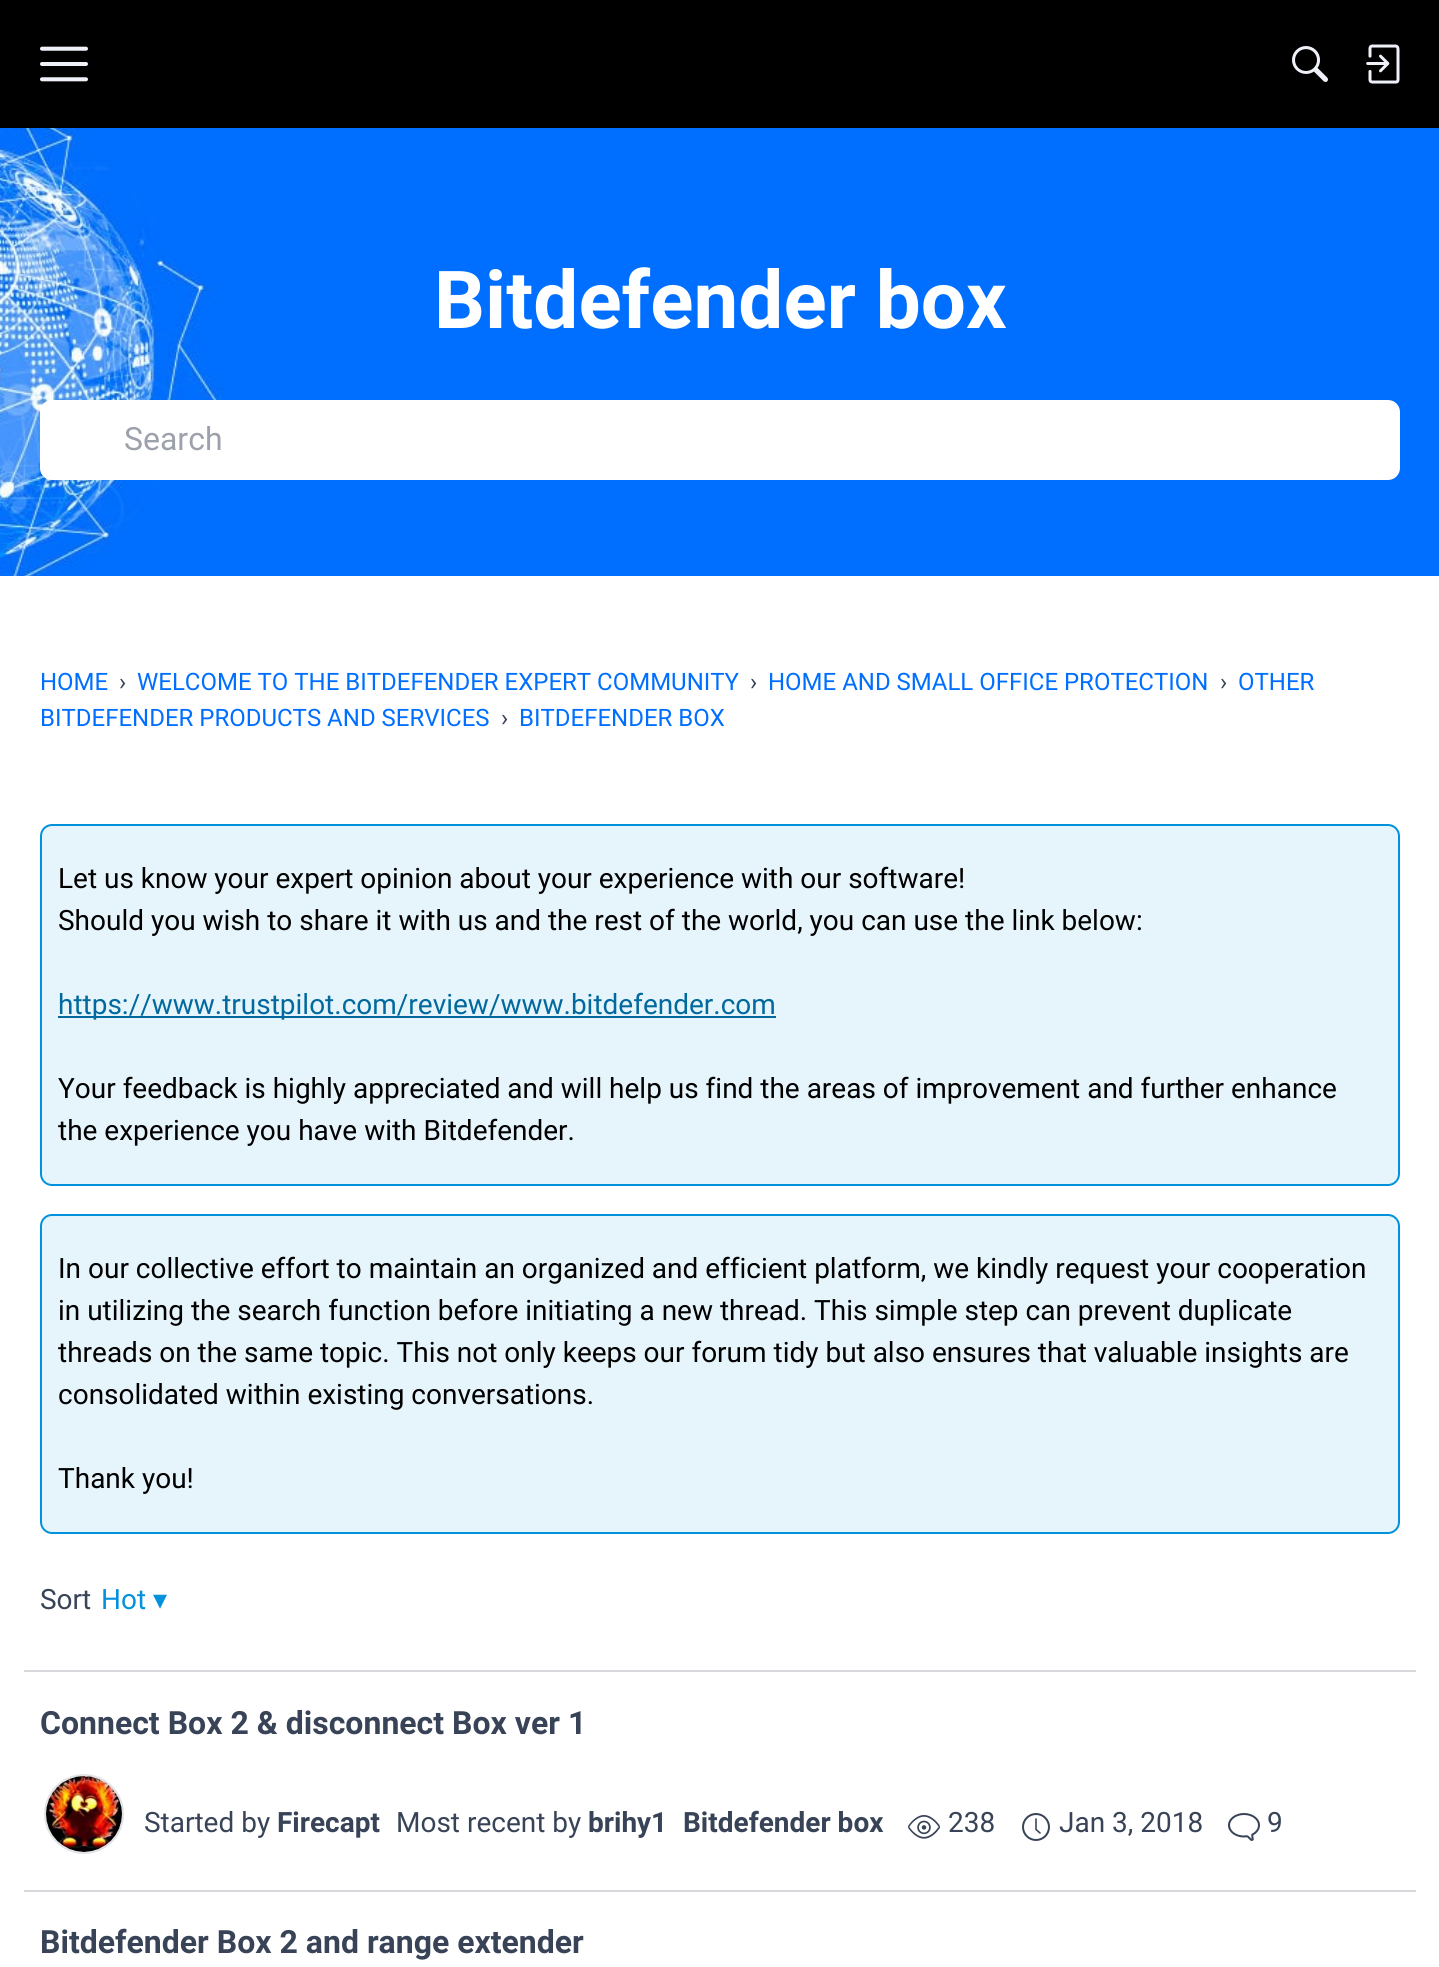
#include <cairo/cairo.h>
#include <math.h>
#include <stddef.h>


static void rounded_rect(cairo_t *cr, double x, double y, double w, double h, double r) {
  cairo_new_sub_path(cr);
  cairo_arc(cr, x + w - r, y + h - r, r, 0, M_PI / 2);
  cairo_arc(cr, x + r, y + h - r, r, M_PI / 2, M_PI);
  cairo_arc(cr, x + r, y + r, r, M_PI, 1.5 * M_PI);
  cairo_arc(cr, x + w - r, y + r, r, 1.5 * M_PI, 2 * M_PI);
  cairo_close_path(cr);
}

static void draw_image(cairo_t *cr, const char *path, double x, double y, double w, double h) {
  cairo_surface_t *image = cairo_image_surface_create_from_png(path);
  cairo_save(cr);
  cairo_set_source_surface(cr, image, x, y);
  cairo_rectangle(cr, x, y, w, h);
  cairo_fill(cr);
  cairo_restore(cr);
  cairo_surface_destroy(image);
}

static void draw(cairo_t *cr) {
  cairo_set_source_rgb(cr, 1, 1, 1);
  cairo_paint(cr);
  cairo_set_source_rgb(cr, 0, 0, 0);
  cairo_rectangle(cr, 0, 0, 1439, 128);
  cairo_fill(cr);
  draw_image(cr, "images/1.png", 40, 46, 48, 36);
  draw_image(cr, "images/2.png", 1292, 46, 36, 36);
  draw_image(cr, "images/3.png", 1366, 44, 34, 40);
  draw_image(cr, "images/4.png", 0, 128, 1439, 448);
  cairo_set_source_rgb(cr, 1, 1, 1);
  rounded_rect(cr, 40, 400, 1360, 80, 12);
  cairo_fill(cr);
  cairo_set_source_rgb(cr, 230 / 255.0, 244 / 255.0, 251 / 255.0);
  rounded_rect(cr, 41, 825, 1358, 360, 11);
  cairo_fill_preserve(cr);
  cairo_set_source_rgb(cr, 2 / 255.0, 145 / 255.0, 219 / 255.0);
  cairo_stroke(cr);
  cairo_set_source_rgb(cr, 1 / 255.0, 105 / 255.0, 158 / 255.0);
  cairo_rectangle(cr, 58, 1016, 718, 2);
  cairo_fill(cr);
  cairo_set_source_rgb(cr, 230 / 255.0, 244 / 255.0, 251 / 255.0);
  rounded_rect(cr, 41, 1215, 1358, 318, 11);
  cairo_fill_preserve(cr);
  cairo_set_source_rgb(cr, 2 / 255.0, 145 / 255.0, 219 / 255.0);
  cairo_stroke(cr);
  cairo_set_source_rgb(cr, 215 / 255.0, 217 / 255.0, 221 / 255.0);
  cairo_rectangle(cr, 24, 1670, 1392, 2);
  cairo_fill(cr);
  cairo_arc(cr, 84, 1814, 39, 0, 2 * M_PI);
  cairo_set_source_rgb(cr, 225 / 255.0, 227 / 255.0, 230 / 255.0);
  cairo_stroke(cr);
  draw_image(cr, "images/5.png", 46, 1776, 76, 76);
  draw_image(cr, "images/6.png", 908, 1815, 32, 24);
  cairo_arc(cr, 1036, 1827, 13, 0, 2 * M_PI);
  cairo_set_source_rgb(cr, 56 / 255.0, 67 / 255.0, 87 / 255.0);
  cairo_stroke(cr);
  cairo_new_path(cr);
  cairo_move_to(cr, 1036, 1819);
  cairo_line_to(cr, 1036, 1829.5);
  cairo_line_to(cr, 1040, 1833);
  cairo_set_line_width(cr, 1.6);
  cairo_set_line_cap(cr, CAIRO_LINE_CAP_ROUND);
  cairo_set_line_join(cr, CAIRO_LINE_JOIN_ROUND);
  cairo_stroke(cr);
  draw_image(cr, "images/7.png", 1228, 1813, 32, 28);
  cairo_set_source_rgb(cr, 215 / 255.0, 217 / 255.0, 221 / 255.0);
  cairo_rectangle(cr, 24, 1890, 1392, 2);
  cairo_fill(cr);
  cairo_select_font_face(cr, "Roboto", CAIRO_FONT_SLANT_NORMAL, CAIRO_FONT_WEIGHT_BOLD);
  cairo_set_font_size(cr, 80);
  cairo_set_source_rgb(cr, 1, 1, 1);
  cairo_move_to(cr, 434, 328);
  cairo_show_text(cr, "Bitdefender box");
  cairo_select_font_face(cr, "Roboto", CAIRO_FONT_SLANT_NORMAL, CAIRO_FONT_WEIGHT_NORMAL);
  cairo_set_font_size(cr, 32);
  cairo_set_source_rgb(cr, 156 / 255.0, 161 / 255.0, 171 / 255.0);
  cairo_move_to(cr, 124, 450);
  cairo_show_text(cr, "Search");
  cairo_set_font_size(cr, 24);
  cairo_set_source_rgb(cr, 0, 110 / 255.0, 1);
  cairo_move_to(cr, 40, 690);
  cairo_show_text(cr, "HOME");
  cairo_set_source_rgb(cr, 56 / 255.0, 67 / 255.0, 87 / 255.0);
  cairo_move_to(cr, 119, 690);
  cairo_show_text(cr, "›");
  cairo_set_source_rgb(cr, 0, 110 / 255.0, 1);
  cairo_move_to(cr, 137, 690);
  cairo_show_text(cr, "WELCOME TO THE BITDEFENDER EXPERT COMMUNITY");
  cairo_set_source_rgb(cr, 56 / 255.0, 67 / 255.0, 87 / 255.0);
  cairo_move_to(cr, 750, 690);
  cairo_show_text(cr, "›");
  cairo_set_source_rgb(cr, 0, 110 / 255.0, 1);
  cairo_move_to(cr, 768, 690);
  cairo_show_text(cr, "HOME AND SMALL OFFICE PROTECTION");
  cairo_set_source_rgb(cr, 56 / 255.0, 67 / 255.0, 87 / 255.0);
  cairo_move_to(cr, 1220, 690);
  cairo_show_text(cr, "›");
  cairo_set_source_rgb(cr, 0, 110 / 255.0, 1);
  cairo_move_to(cr, 1238, 690);
  cairo_show_text(cr, "OTHER");
  cairo_move_to(cr, 40, 726);
  cairo_show_text(cr, "BITDEFENDER PRODUCTS AND SERVICES");
  cairo_set_source_rgb(cr, 56 / 255.0, 67 / 255.0, 87 / 255.0);
  cairo_move_to(cr, 501, 726);
  cairo_show_text(cr, "›");
  cairo_set_source_rgb(cr, 0, 110 / 255.0, 1);
  cairo_move_to(cr, 519, 726);
  cairo_show_text(cr, "BITDEFENDER BOX");
  cairo_set_font_size(cr, 28);
  cairo_set_source_rgb(cr, 0, 0, 0);
  cairo_move_to(cr, 58, 888);
  cairo_show_text(cr, "Let us know your expert opinion about your experience with our software!");
  cairo_move_to(cr, 58, 930);
  cairo_show_text(cr, "Should you wish to share it with us and the rest of the world, you can use the link below:");
  cairo_set_source_rgb(cr, 1 / 255.0, 105 / 255.0, 158 / 255.0);
  cairo_move_to(cr, 58, 1014);
  cairo_show_text(cr, "https://www.trustpilot.com/review/www.bitdefender.com");
  cairo_set_source_rgb(cr, 0, 0, 0);
  cairo_move_to(cr, 58, 1098);
  cairo_show_text(cr, "Your feedback is highly appreciated and will help us find the areas of improvement and further enhance");
  cairo_move_to(cr, 58, 1140);
  cairo_show_text(cr, "the experience you have with Bitdefender.");
  cairo_move_to(cr, 58, 1278);
  cairo_show_text(cr, "In our collective effort to maintain an organized and efficient platform, we kindly request your cooperation");
  cairo_move_to(cr, 58, 1320);
  cairo_show_text(cr, "in utilizing the search function before initiating a new thread. This simple step can prevent duplicate");
  cairo_move_to(cr, 58, 1362);
  cairo_show_text(cr, "threads on the same topic. This not only keeps our forum tidy but also ensures that valuable insights are");
  cairo_move_to(cr, 58, 1404);
  cairo_show_text(cr, "consolidated within existing conversations.");
  cairo_move_to(cr, 58, 1488);
  cairo_show_text(cr, "Thank you!");
  cairo_set_source_rgb(cr, 56 / 255.0, 67 / 255.0, 87 / 255.0);
  cairo_move_to(cr, 40, 1609);
  cairo_show_text(cr, "Sort");
  cairo_set_source_rgb(cr, 2 / 255.0, 145 / 255.0, 219 / 255.0);
  cairo_move_to(cr, 101, 1609);
  cairo_show_text(cr, "Hot");
  cairo_select_font_face(cr, "DejaVu Sans", CAIRO_FONT_SLANT_NORMAL, CAIRO_FONT_WEIGHT_NORMAL);
  cairo_move_to(cr, 153, 1609);
  cairo_show_text(cr, "▾");
  cairo_select_font_face(cr, "Roboto", CAIRO_FONT_SLANT_NORMAL, CAIRO_FONT_WEIGHT_BOLD);
  cairo_set_font_size(cr, 32);
  cairo_set_source_rgb(cr, 56 / 255.0, 67 / 255.0, 87 / 255.0);
  cairo_move_to(cr, 40, 1734);
  cairo_show_text(cr, "Connect Box 2 & disconnect Box ver 1");
  cairo_select_font_face(cr, "Roboto", CAIRO_FONT_SLANT_NORMAL, CAIRO_FONT_WEIGHT_NORMAL);
  cairo_set_font_size(cr, 28);
  cairo_move_to(cr, 144, 1832);
  cairo_show_text(cr, "Started by");
  cairo_select_font_face(cr, "Roboto", CAIRO_FONT_SLANT_NORMAL, CAIRO_FONT_WEIGHT_BOLD);
  cairo_move_to(cr, 277, 1832);
  cairo_show_text(cr, "Firecapt");
  cairo_select_font_face(cr, "Roboto", CAIRO_FONT_SLANT_NORMAL, CAIRO_FONT_WEIGHT_NORMAL);
  cairo_move_to(cr, 396, 1832);
  cairo_show_text(cr, "Most recent by");
  cairo_select_font_face(cr, "Roboto", CAIRO_FONT_SLANT_NORMAL, CAIRO_FONT_WEIGHT_BOLD);
  cairo_move_to(cr, 588, 1832);
  cairo_show_text(cr, "brihy1");
  cairo_move_to(cr, 683, 1832);
  cairo_show_text(cr, "Bitdefender box");
  cairo_select_font_face(cr, "Roboto", CAIRO_FONT_SLANT_NORMAL, CAIRO_FONT_WEIGHT_NORMAL);
  cairo_move_to(cr, 948, 1832);
  cairo_show_text(cr, "238");
  cairo_move_to(cr, 1059, 1832);
  cairo_show_text(cr, "Jan 3, 2018");
  cairo_move_to(cr, 1267, 1832);
  cairo_show_text(cr, "9");
  cairo_select_font_face(cr, "Roboto", CAIRO_FONT_SLANT_NORMAL, CAIRO_FONT_WEIGHT_BOLD);
  cairo_set_font_size(cr, 32);
  cairo_move_to(cr, 40, 1953);
  cairo_show_text(cr, "Bitdefender Box 2 and range extender");
}

int main(void) {
  cairo_surface_t *surface = cairo_image_surface_create(CAIRO_FORMAT_RGB24, 1439, 1967);
  cairo_t *cr = cairo_create(surface);
  cairo_font_options_t *options = cairo_font_options_create();
  cairo_font_options_set_hint_metrics(options, CAIRO_HINT_METRICS_OFF);
  cairo_font_options_set_hint_style(options, CAIRO_HINT_STYLE_NONE);
  cairo_set_font_options(cr, options);
  cairo_set_miter_limit(cr, 4);
  draw(cr);
  cairo_surface_write_to_png(surface, "out.png");
  cairo_font_options_destroy(options);
  cairo_destroy(cr);
  cairo_surface_destroy(surface);
  return 0;
}
